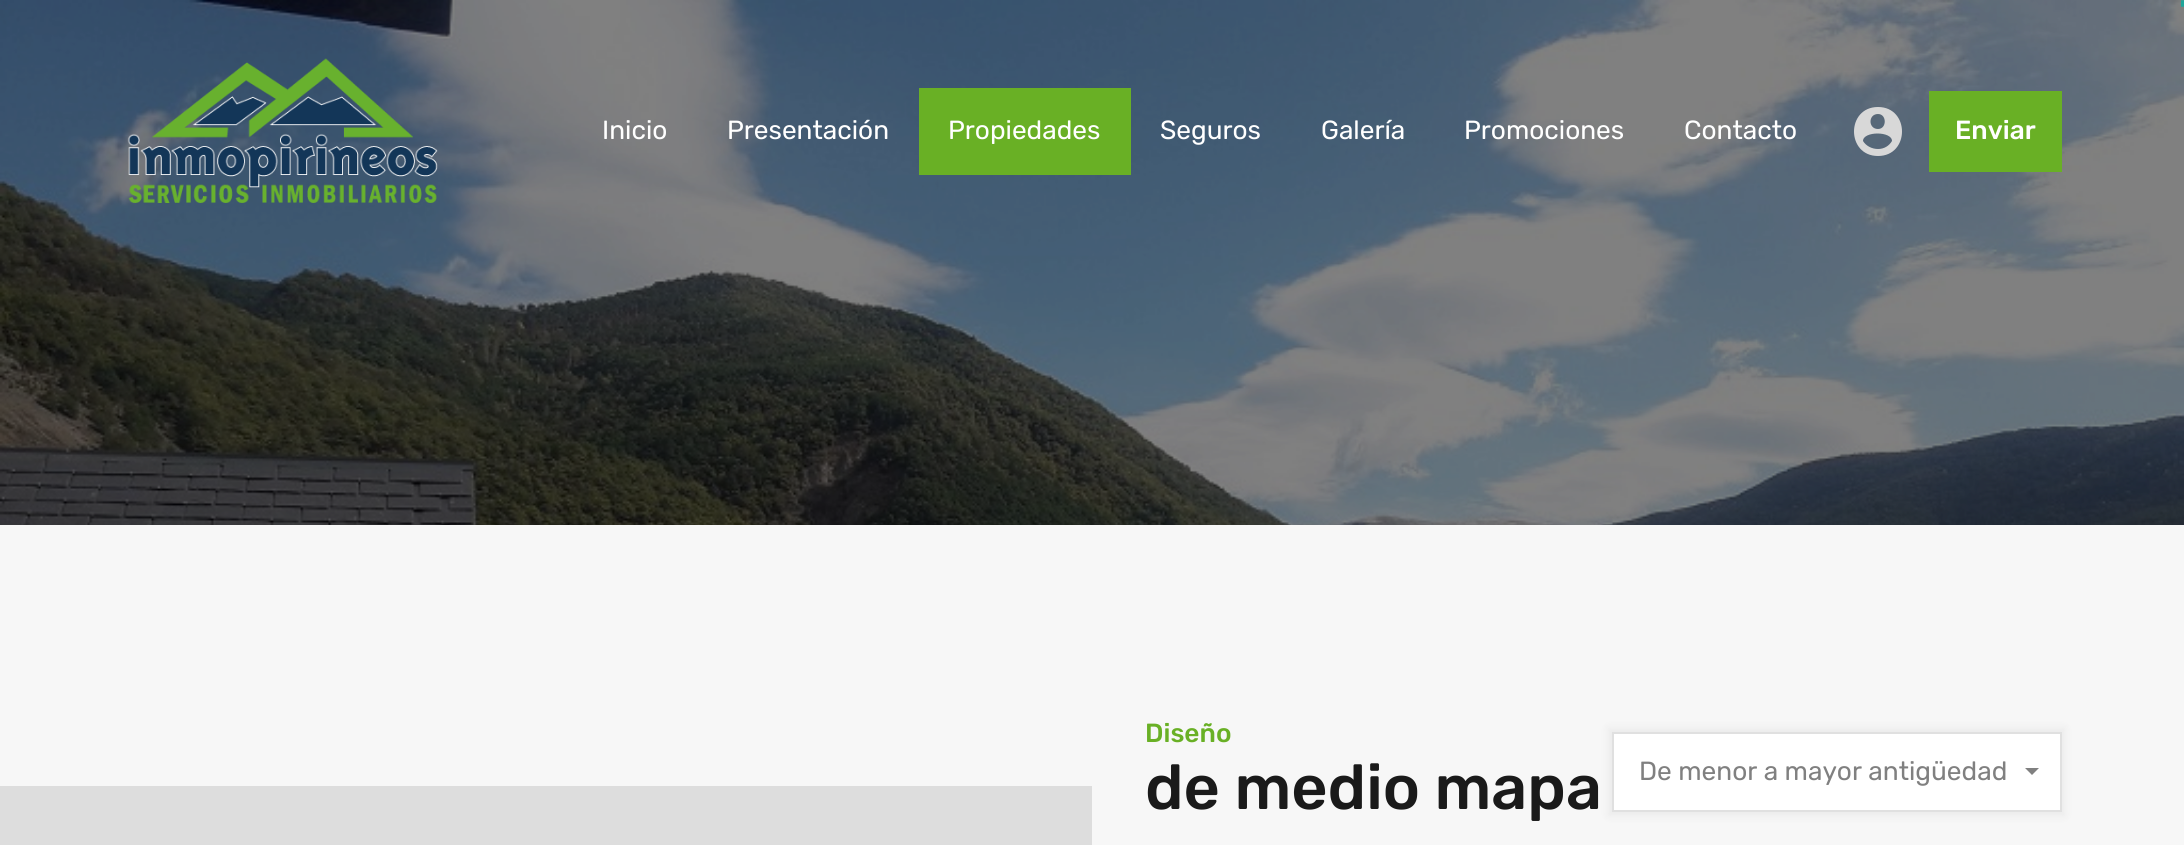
#include <cairo/cairo.h>
#include <math.h>
#include <stddef.h>


static void rounded_rect(cairo_t *cr, double x, double y, double w, double h, double r) {
  cairo_new_sub_path(cr);
  cairo_arc(cr, x + w - r, y + h - r, r, 0, M_PI / 2);
  cairo_arc(cr, x + r, y + h - r, r, M_PI / 2, M_PI);
  cairo_arc(cr, x + r, y + r, r, M_PI, 1.5 * M_PI);
  cairo_arc(cr, x + w - r, y + r, r, 1.5 * M_PI, 2 * M_PI);
  cairo_close_path(cr);
}

static void draw_shadow(cairo_t *cr, double x, double y, double w, double h, double r, double blur, double alpha) {
  cairo_push_group_with_content(cr, CAIRO_CONTENT_ALPHA);
  cairo_set_operator(cr, CAIRO_OPERATOR_SOURCE);
  for (int i = 15; i >= -15 && fmin(w, h) + blur * i / 3 > 0; i -= 2) {
    double e = blur * i / 6;
    cairo_set_source_rgba(cr, 0, 0, 0, alpha * erfc((i - 1) / 8.5) / 2);
    rounded_rect(cr, x - e, y - e, w + 2 * e, h + 2 * e, fmax(0, fmin(r + e + blur * .6, fmin(w, h) / 2 + e)));
    cairo_fill(cr);
  }
  cairo_pattern_t *soft = cairo_pop_group(cr);
  cairo_mask(cr, soft);
  cairo_pattern_destroy(soft);
}

static void draw_image(cairo_t *cr, const char *path, double x, double y, double w, double h) {
  cairo_surface_t *image = cairo_image_surface_create_from_png(path);
  cairo_save(cr);
  cairo_set_source_surface(cr, image, x, y);
  cairo_rectangle(cr, x, y, w, h);
  cairo_fill(cr);
  cairo_restore(cr);
  cairo_surface_destroy(image);
}

static void draw(cairo_t *cr) {
  cairo_set_source_rgb(cr, 247 / 255.0, 247 / 255.0, 247 / 255.0);
  cairo_paint(cr);
  draw_image(cr, "images/1.png", 0, 0, 2184, 525);
  cairo_new_path(cr);
  cairo_move_to(cr, 2181, 3.5);
  cairo_line_to(cr, 2184, 3.5);
  cairo_set_source_rgb(cr, 30 / 255.0, 166 / 255.0, 154 / 255.0);
  cairo_set_line_width(cr, 6.5);
  cairo_stroke(cr);
  draw_image(cr, "images/2.png", 127, 58, 311, 145);
  cairo_set_source_rgb(cr, 105 / 255.0, 176 / 255.0, 37 / 255.0);
  cairo_rectangle(cr, 919, 88, 212, 87);
  cairo_fill(cr);
  cairo_set_source_rgb(cr, 216 / 255.0, 216 / 255.0, 216 / 255.0);
  cairo_new_path(cr);
  cairo_move_to(cr, 1878, 107);
  cairo_curve_to(cr, 1846, 107, 1846, 156, 1878, 156);
  cairo_curve_to(cr, 1910, 156, 1910, 107, 1878, 107);
  cairo_close_path(cr);
  cairo_move_to(cr, 1878, 114);
  cairo_curve_to(cr, 1887, 114, 1887, 129, 1878, 129);
  cairo_curve_to(cr, 1868, 129, 1868, 114, 1878, 114);
  cairo_close_path(cr);
  cairo_move_to(cr, 1878, 149);
  cairo_curve_to(cr, 1872, 149, 1866, 146, 1863, 141);
  cairo_curve_to(cr, 1863, 131, 1892, 131, 1892, 141);
  cairo_curve_to(cr, 1889, 146, 1884, 149, 1878, 149);
  cairo_close_path(cr);
  cairo_fill(cr);
  cairo_set_source_rgb(cr, 105 / 255.0, 176 / 255.0, 37 / 255.0);
  cairo_rectangle(cr, 1929, 91, 133, 81);
  cairo_fill(cr);
  cairo_set_source_rgb(cr, 221 / 255.0, 221 / 255.0, 221 / 255.0);
  cairo_rectangle(cr, 0, 786, 1092, 59);
  cairo_fill(cr);
  cairo_set_source_rgb(cr, 0, 0, 0);
  draw_shadow(cr, 1608, 728, 457, 88, 0, 4.5, 0.05);
  cairo_set_source_rgb(cr, 1, 1, 1);
  cairo_rectangle(cr, 1613, 733, 448, 78);
  cairo_fill_preserve(cr);
  cairo_set_source_rgb(cr, 224 / 255.0, 224 / 255.0, 224 / 255.0);
  cairo_set_line_width(cr, 2);
  cairo_stroke(cr);
  cairo_set_source_rgb(cr, 128 / 255.0, 128 / 255.0, 128 / 255.0);
  cairo_new_path(cr);
  cairo_move_to(cr, 2025, 768);
  cairo_line_to(cr, 2039, 768);
  cairo_line_to(cr, 2032, 775);
  cairo_close_path(cr);
  cairo_fill(cr);
  cairo_select_font_face(cr, "Rubik", CAIRO_FONT_SLANT_NORMAL, CAIRO_FONT_WEIGHT_NORMAL);
  cairo_set_font_size(cr, 26.25);
  cairo_set_source_rgb(cr, 1, 1, 1);
  cairo_move_to(cr, 602, 139);
  cairo_show_text(cr, "Inicio");
  cairo_move_to(cr, 727, 139);
  cairo_show_text(cr, "Presentación");
  cairo_move_to(cr, 948, 139);
  cairo_show_text(cr, "Propiedades");
  cairo_move_to(cr, 1160, 139);
  cairo_show_text(cr, "Seguros");
  cairo_move_to(cr, 1321, 139);
  cairo_show_text(cr, "Galería");
  cairo_move_to(cr, 1464, 139);
  cairo_show_text(cr, "Promociones");
  cairo_move_to(cr, 1684, 139);
  cairo_show_text(cr, "Contacto");
  cairo_select_font_face(cr, "Rubik Medium", CAIRO_FONT_SLANT_NORMAL, CAIRO_FONT_WEIGHT_NORMAL);
  cairo_move_to(cr, 1955, 139);
  cairo_show_text(cr, "Enviar");
  cairo_set_source_rgb(cr, 105 / 255.0, 176 / 255.0, 37 / 255.0);
  cairo_move_to(cr, 1145, 742);
  cairo_show_text(cr, "Diseño");
  cairo_set_font_size(cr, 63);
  cairo_set_source_rgb(cr, 26 / 255.0, 26 / 255.0, 26 / 255.0);
  cairo_move_to(cr, 1145, 809);
  cairo_show_text(cr, "de medio mapa");
  cairo_select_font_face(cr, "Rubik", CAIRO_FONT_SLANT_NORMAL, CAIRO_FONT_WEIGHT_NORMAL);
  cairo_set_font_size(cr, 26.25);
  cairo_set_source_rgb(cr, 128 / 255.0, 128 / 255.0, 128 / 255.0);
  cairo_move_to(cr, 1639, 780);
  cairo_show_text(cr, "De menor a mayor antigüedad");
}

int main(void) {
  cairo_surface_t *surface = cairo_image_surface_create(CAIRO_FORMAT_RGB24, 2184, 845);
  cairo_t *cr = cairo_create(surface);
  cairo_font_options_t *options = cairo_font_options_create();
  cairo_font_options_set_hint_metrics(options, CAIRO_HINT_METRICS_OFF);
  cairo_font_options_set_hint_style(options, CAIRO_HINT_STYLE_NONE);
  cairo_set_font_options(cr, options);
  cairo_set_miter_limit(cr, 4);
  draw(cr);
  cairo_surface_write_to_png(surface, "out.png");
  cairo_font_options_destroy(options);
  cairo_destroy(cr);
  cairo_surface_destroy(surface);
  return 0;
}
